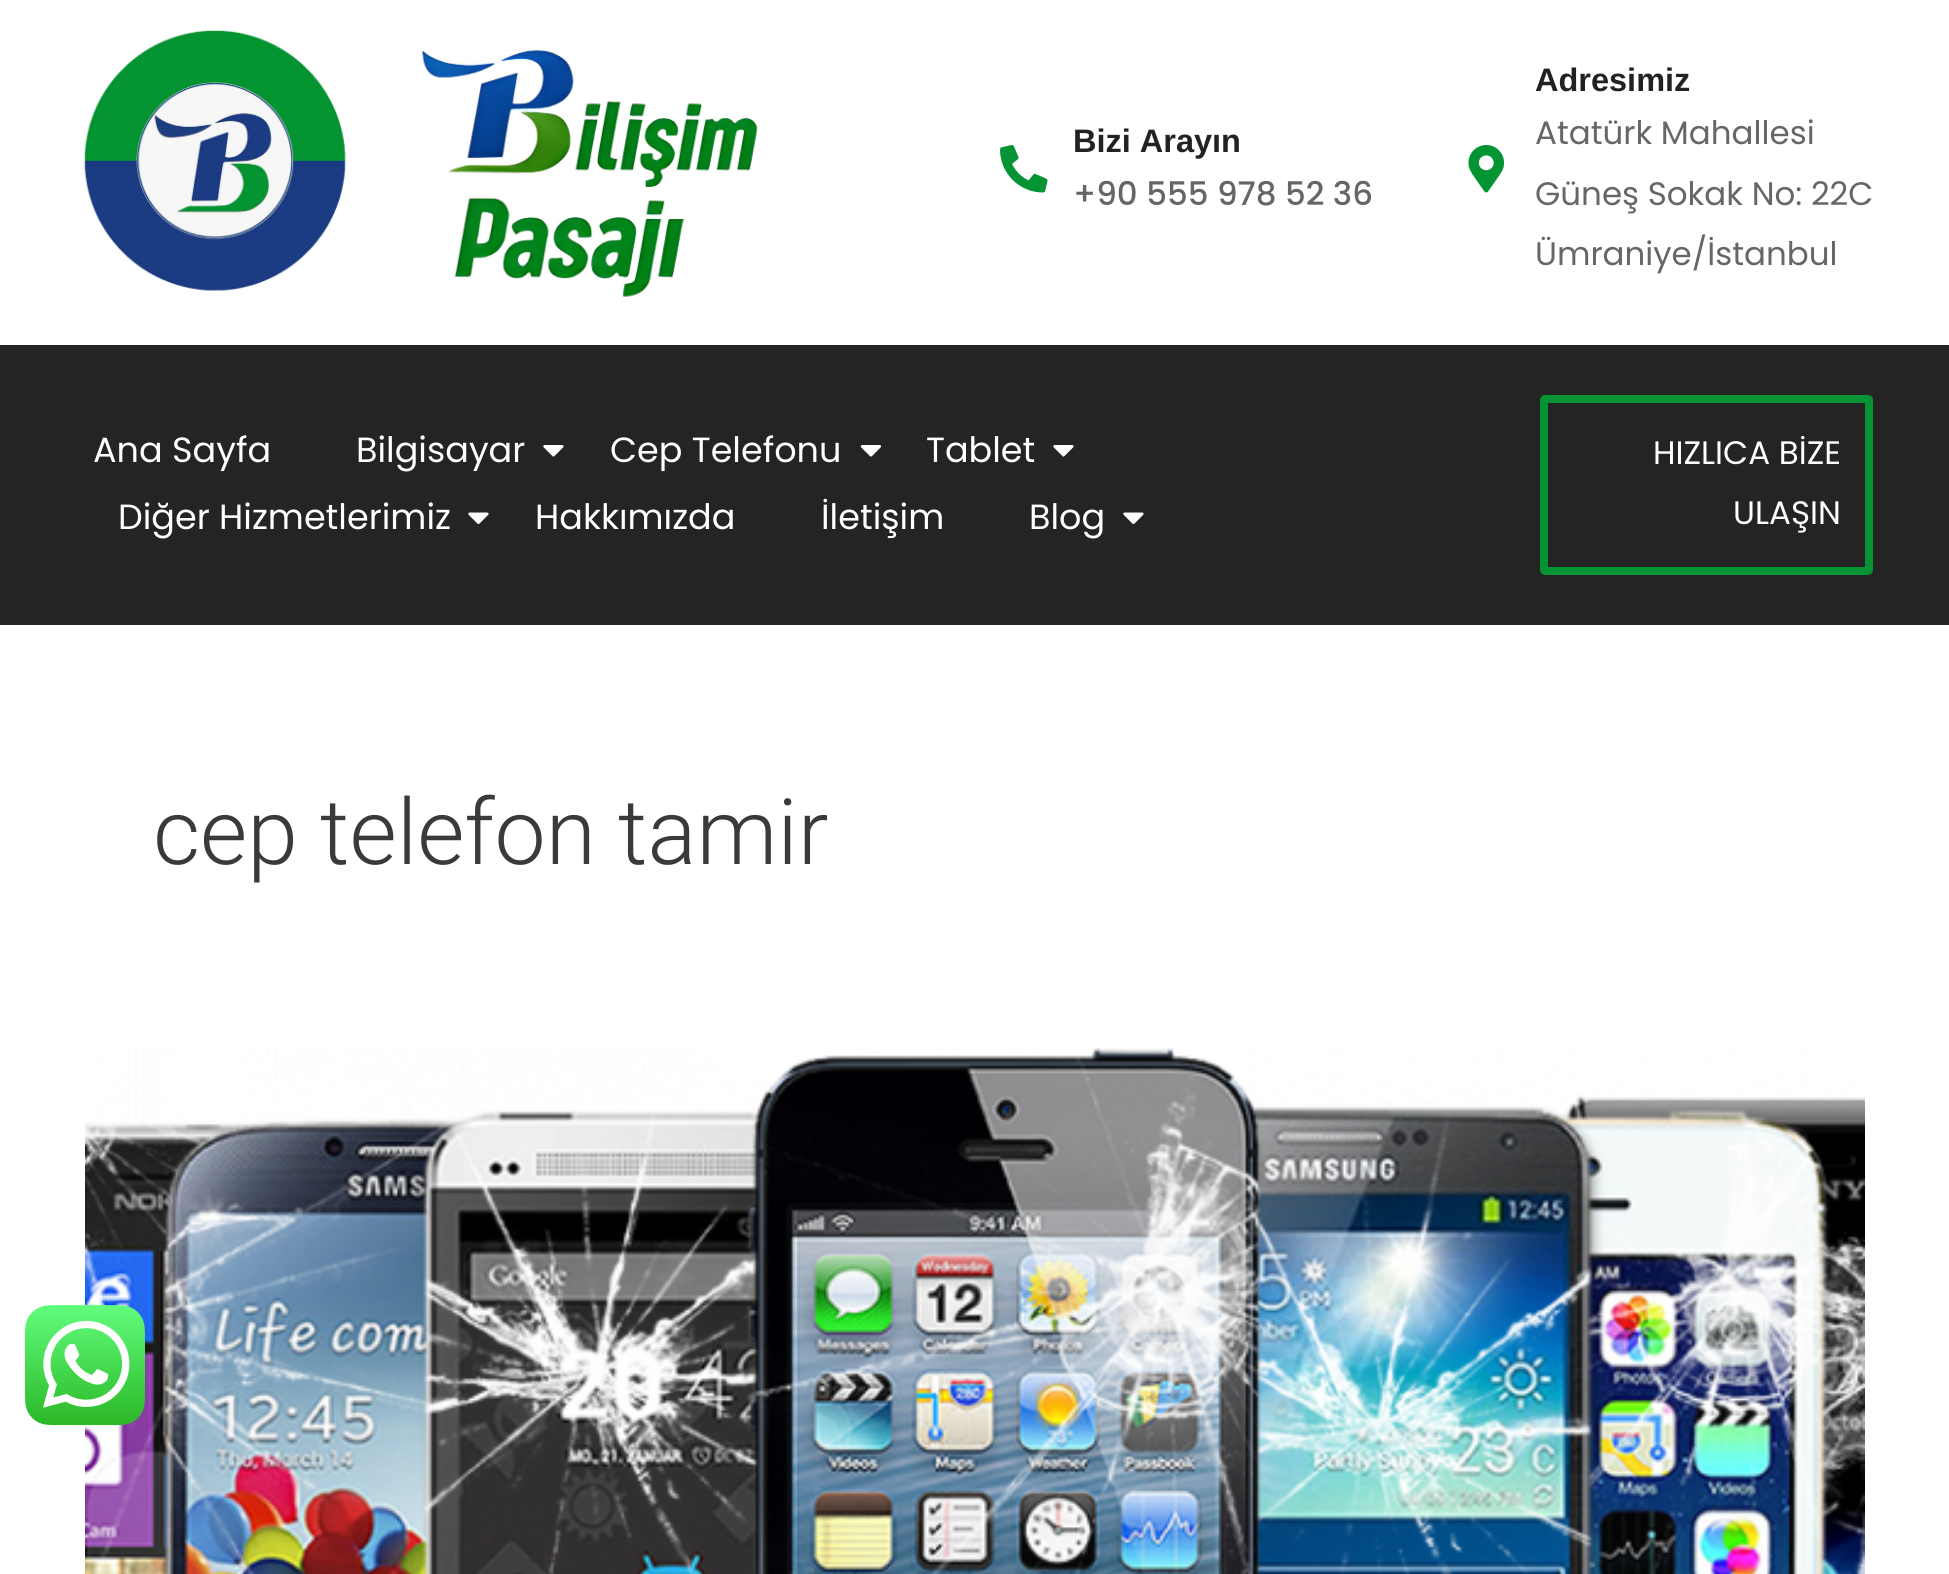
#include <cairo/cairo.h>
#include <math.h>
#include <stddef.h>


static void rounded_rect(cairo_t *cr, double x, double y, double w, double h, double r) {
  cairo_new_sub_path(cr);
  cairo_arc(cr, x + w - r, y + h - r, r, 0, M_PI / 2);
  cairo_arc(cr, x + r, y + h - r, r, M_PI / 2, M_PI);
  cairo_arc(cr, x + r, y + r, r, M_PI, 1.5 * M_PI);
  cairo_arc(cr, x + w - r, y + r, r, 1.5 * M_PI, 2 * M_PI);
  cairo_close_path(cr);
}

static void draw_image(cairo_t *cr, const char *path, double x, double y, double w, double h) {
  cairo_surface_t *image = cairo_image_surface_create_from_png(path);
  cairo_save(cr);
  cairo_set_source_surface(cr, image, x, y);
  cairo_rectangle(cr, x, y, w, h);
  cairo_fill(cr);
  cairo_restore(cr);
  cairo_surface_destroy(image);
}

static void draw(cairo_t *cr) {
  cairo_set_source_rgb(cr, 1, 1, 1);
  cairo_paint(cr);
  draw_image(cr, "images/1.png", 84, 30, 674, 267);
  draw_image(cr, "images/2.png", 1000, 145, 48, 48);
  draw_image(cr, "images/3.png", 1468, 145, 37, 48);
  cairo_set_source_rgb(cr, 36 / 255.0, 36 / 255.0, 36 / 255.0);
  cairo_rectangle(cr, 0, 345, 1949, 280);
  cairo_fill(cr);
  draw_image(cr, "images/4.png", 543, 445, 21, 12);
  draw_image(cr, "images/5.png", 860, 445, 22, 12);
  draw_image(cr, "images/4.png", 1053, 445, 21, 12);
  draw_image(cr, "images/6.png", 468, 512, 21, 12);
  draw_image(cr, "images/6.png", 1123, 512, 21, 12);
  rounded_rect(cr, 1544, 399, 325, 172, 1);
  cairo_set_source_rgb(cr, 4 / 255.0, 148 / 255.0, 51 / 255.0);
  cairo_set_line_width(cr, 8);
  cairo_stroke(cr);
  draw_image(cr, "images/7.png", 85, 1048, 1780, 526);
  draw_image(cr, "images/8.png", 25, 1305, 120, 120);
  cairo_select_font_face(cr, "Liberation Sans", CAIRO_FONT_SLANT_NORMAL, CAIRO_FONT_WEIGHT_BOLD);
  cairo_set_font_size(cr, 32.5);
  cairo_set_source_rgb(cr, 34 / 255.0, 34 / 255.0, 34 / 255.0);
  cairo_move_to(cr, 1073, 152);
  cairo_show_text(cr, "Bizi Arayın");
  cairo_select_font_face(cr, "Poppins Medium", CAIRO_FONT_SLANT_NORMAL, CAIRO_FONT_WEIGHT_NORMAL);
  cairo_set_source_rgb(cr, 102 / 255.0, 102 / 255.0, 102 / 255.0);
  cairo_move_to(cr, 1073, 205);
  cairo_show_text(cr, "+90 555 978 52 36");
  cairo_select_font_face(cr, "Liberation Sans", CAIRO_FONT_SLANT_NORMAL, CAIRO_FONT_WEIGHT_BOLD);
  cairo_set_source_rgb(cr, 34 / 255.0, 34 / 255.0, 34 / 255.0);
  cairo_move_to(cr, 1535, 91);
  cairo_show_text(cr, "Adresimiz");
  cairo_select_font_face(cr, "Poppins", CAIRO_FONT_SLANT_NORMAL, CAIRO_FONT_WEIGHT_NORMAL);
  cairo_set_source_rgb(cr, 102 / 255.0, 102 / 255.0, 102 / 255.0);
  cairo_move_to(cr, 1535, 144);
  cairo_show_text(cr, "Atatürk Mahallesi");
  cairo_move_to(cr, 1535, 205);
  cairo_show_text(cr, "Güneş Sokak No: 22C");
  cairo_move_to(cr, 1535, 265);
  cairo_show_text(cr, "Ümraniye/İstanbul");
  cairo_set_font_size(cr, 35);
  cairo_set_source_rgb(cr, 1, 1, 1);
  cairo_move_to(cr, 93, 462);
  cairo_show_text(cr, "Ana Sayfa");
  cairo_move_to(cr, 356, 462);
  cairo_show_text(cr, "Bilgisayar");
  cairo_move_to(cr, 610, 462);
  cairo_show_text(cr, "Cep Telefonu");
  cairo_move_to(cr, 926, 462);
  cairo_show_text(cr, "Tablet");
  cairo_move_to(cr, 118, 529);
  cairo_show_text(cr, "Diğer Hizmetlerimiz");
  cairo_move_to(cr, 535, 529);
  cairo_show_text(cr, "Hakkımızda");
  cairo_move_to(cr, 821, 529);
  cairo_show_text(cr, "İletişim");
  cairo_move_to(cr, 1029, 529);
  cairo_show_text(cr, "Blog");
  cairo_set_font_size(cr, 32.5);
  cairo_move_to(cr, 1653, 464);
  cairo_show_text(cr, "HIZLICA BİZE");
  cairo_move_to(cr, 1733, 524);
  cairo_show_text(cr, "ULAŞIN");
  cairo_select_font_face(cr, "Roboto Light", CAIRO_FONT_SLANT_NORMAL, CAIRO_FONT_WEIGHT_NORMAL);
  cairo_set_font_size(cr, 91.25);
  cairo_set_source_rgb(cr, 58 / 255.0, 58 / 255.0, 58 / 255.0);
  cairo_move_to(cr, 153, 864);
  cairo_show_text(cr, "cep telefon tamir");
}

int main(void) {
  cairo_surface_t *surface = cairo_image_surface_create(CAIRO_FORMAT_RGB24, 1949, 1574);
  cairo_t *cr = cairo_create(surface);
  cairo_font_options_t *options = cairo_font_options_create();
  cairo_font_options_set_hint_metrics(options, CAIRO_HINT_METRICS_OFF);
  cairo_font_options_set_hint_style(options, CAIRO_HINT_STYLE_NONE);
  cairo_set_font_options(cr, options);
  cairo_set_miter_limit(cr, 4);
  draw(cr);
  cairo_surface_write_to_png(surface, "out.png");
  cairo_font_options_destroy(options);
  cairo_destroy(cr);
  cairo_surface_destroy(surface);
  return 0;
}
